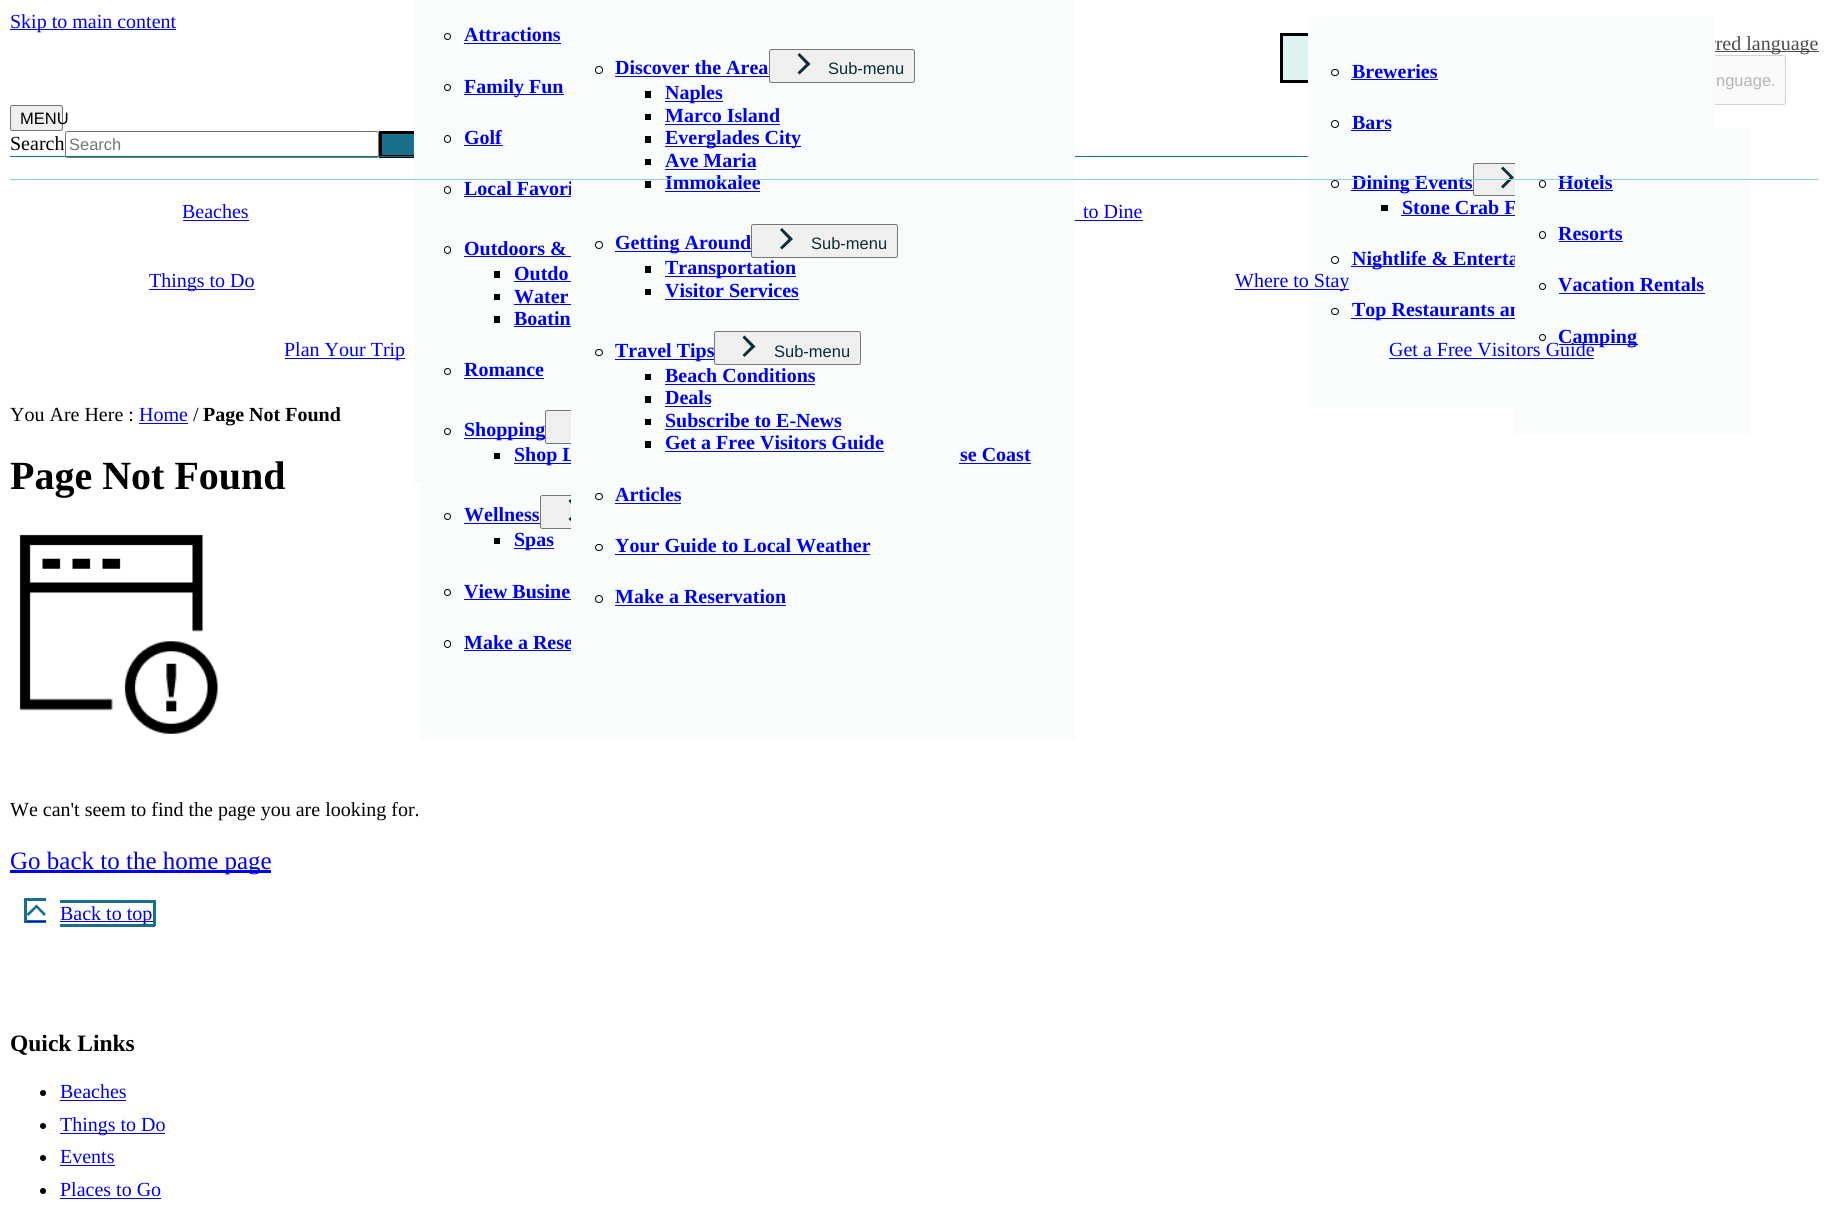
#include <cairo/cairo.h>
#include <math.h>
#include <stddef.h>


static void rounded_rect(cairo_t *cr, double x, double y, double w, double h, double r) {
  cairo_new_sub_path(cr);
  cairo_arc(cr, x + w - r, y + h - r, r, 0, M_PI / 2);
  cairo_arc(cr, x + r, y + h - r, r, M_PI / 2, M_PI);
  cairo_arc(cr, x + r, y + r, r, M_PI, 1.5 * M_PI);
  cairo_arc(cr, x + w - r, y + r, r, 1.5 * M_PI, 2 * M_PI);
  cairo_close_path(cr);
}

static void draw_image(cairo_t *cr, const char *path, double x, double y, double w, double h) {
  cairo_surface_t *image = cairo_image_surface_create_from_png(path);
  cairo_save(cr);
  cairo_set_source_surface(cr, image, x, y);
  cairo_rectangle(cr, x, y, w, h);
  cairo_fill(cr);
  cairo_restore(cr);
  cairo_surface_destroy(image);
}

static void draw(cairo_t *cr) {
  cairo_set_source_rgb(cr, 1, 1, 1);
  cairo_paint(cr);
  cairo_set_source_rgb(cr, 0, 0, 238 / 255.0);
  cairo_rectangle(cr, 10, 29, 166, 1);
  cairo_fill(cr);
  cairo_rectangle(cr, 149, 289, 106, 1);
  cairo_fill(cr);
  cairo_set_source_rgb(cr, 24 / 255.0, 113 / 255.0, 140 / 255.0);
  cairo_rectangle(cr, 380.5, 132.5, 64, 24);
  cairo_fill_preserve(cr);
  cairo_set_source_rgb(cr, 0, 0, 0);
  cairo_set_line_width(cr, 3);
  cairo_stroke(cr);
  rounded_rect(cr, 65.5, 131.5, 313, 26, 2);
  cairo_set_source_rgb(cr, 118 / 255.0, 118 / 255.0, 118 / 255.0);
  cairo_set_line_width(cr, 1);
  cairo_stroke(cr);
  cairo_set_source_rgb(cr, 24 / 255.0, 113 / 255.0, 140 / 255.0);
  cairo_rectangle(cr, 10, 156, 1298, 1);
  cairo_fill(cr);
  cairo_set_source_rgb(cr, 248 / 255.0, 252 / 255.0, 252 / 255.0);
  cairo_rectangle(cr, 420, 0, 655, 740);
  cairo_fill(cr);
  cairo_arc(cr, 447.5, 36.5, 3, 0, 2 * M_PI);
  cairo_set_source_rgb(cr, 0, 0, 0);
  cairo_stroke(cr);
  cairo_set_source_rgb(cr, 0, 0, 238 / 255.0);
  cairo_rectangle(cr, 464, 43, 97, 1);
  cairo_fill(cr);
  cairo_arc(cr, 447.5, 87.5, 3, 0, 2 * M_PI);
  cairo_set_source_rgb(cr, 0, 0, 0);
  cairo_stroke(cr);
  cairo_set_source_rgb(cr, 0, 0, 238 / 255.0);
  cairo_rectangle(cr, 464, 94, 100, 1);
  cairo_fill(cr);
  rounded_rect(cr, 444.5, 135.5, 6, 7, 3);
  cairo_set_source_rgb(cr, 0, 0, 0);
  cairo_stroke(cr);
  cairo_set_source_rgb(cr, 0, 0, 238 / 255.0);
  cairo_rectangle(cr, 464, 145, 39, 1);
  cairo_fill(cr);
  rounded_rect(cr, 444.5, 186.5, 6, 7, 3);
  cairo_set_source_rgb(cr, 0, 0, 0);
  cairo_stroke(cr);
  cairo_set_source_rgb(cr, 0, 0, 238 / 255.0);
  cairo_rectangle(cr, 464, 196, 107, 1);
  cairo_fill(cr);
  rounded_rect(cr, 444.5, 246.5, 6, 7, 3);
  cairo_set_source_rgb(cr, 0, 0, 0);
  cairo_stroke(cr);
  cairo_set_source_rgb(cr, 0, 0, 238 / 255.0);
  cairo_rectangle(cr, 464, 256, 107, 1);
  cairo_fill(cr);
  cairo_set_source_rgb(cr, 0, 0, 0);
  cairo_rectangle(cr, 494, 271, 6, 7);
  cairo_fill(cr);
  cairo_set_source_rgb(cr, 0, 0, 238 / 255.0);
  cairo_rectangle(cr, 514, 281, 57, 1);
  cairo_fill(cr);
  cairo_set_source_rgb(cr, 0, 0, 0);
  cairo_rectangle(cr, 494, 294, 6, 6);
  cairo_fill(cr);
  cairo_set_source_rgb(cr, 0, 0, 238 / 255.0);
  cairo_rectangle(cr, 514, 304, 57, 1);
  cairo_fill(cr);
  cairo_set_source_rgb(cr, 0, 0, 0);
  cairo_rectangle(cr, 494, 316, 6, 7);
  cairo_fill(cr);
  cairo_set_source_rgb(cr, 0, 0, 238 / 255.0);
  cairo_rectangle(cr, 514, 326, 57, 1);
  cairo_fill(cr);
  cairo_arc(cr, 447.5, 371.5, 3, 0, 2 * M_PI);
  cairo_set_source_rgb(cr, 0, 0, 0);
  cairo_stroke(cr);
  cairo_set_source_rgb(cr, 0, 0, 238 / 255.0);
  cairo_rectangle(cr, 464, 378, 80, 1);
  cairo_fill(cr);
  cairo_arc(cr, 447.5, 431.5, 3, 0, 2 * M_PI);
  cairo_set_source_rgb(cr, 0, 0, 0);
  cairo_stroke(cr);
  cairo_set_source_rgb(cr, 0, 0, 238 / 255.0);
  cairo_rectangle(cr, 464, 438, 81, 1);
  cairo_fill(cr);
  cairo_set_source_rgb(cr, 0, 0, 0);
  cairo_rectangle(cr, 494, 453, 6, 6);
  cairo_fill(cr);
  cairo_set_source_rgb(cr, 0, 0, 238 / 255.0);
  cairo_rectangle(cr, 514, 463, 517, 1);
  cairo_fill(cr);
  cairo_arc(cr, 447.5, 516.5, 3, 0, 2 * M_PI);
  cairo_set_source_rgb(cr, 0, 0, 0);
  cairo_stroke(cr);
  cairo_set_source_rgb(cr, 0, 0, 238 / 255.0);
  cairo_rectangle(cr, 464, 523, 76, 1);
  cairo_fill(cr);
  cairo_set_source_rgb(cr, 239 / 255.0, 239 / 255.0, 239 / 255.0);
  rounded_rect(cr, 540.5, 495.5, 145, 33, 2);
  cairo_fill_preserve(cr);
  cairo_set_source_rgb(cr, 118 / 255.0, 118 / 255.0, 118 / 255.0);
  cairo_stroke(cr);
  cairo_set_source_rgb(cr, 10 / 255.0, 45 / 255.0, 56 / 255.0);
  cairo_new_path(cr);
  cairo_move_to(cr, 570.5, 521);
  cairo_line_to(cr, 568.5, 519);
  cairo_line_to(cr, 577.5, 510);
  cairo_line_to(cr, 568.5, 501);
  cairo_line_to(cr, 570.5, 499);
  cairo_line_to(cr, 581.5, 510);
  cairo_close_path(cr);
  cairo_fill(cr);
  cairo_set_source_rgb(cr, 0, 0, 0);
  cairo_rectangle(cr, 494, 538, 6, 6);
  cairo_fill(cr);
  cairo_set_source_rgb(cr, 0, 0, 238 / 255.0);
  cairo_rectangle(cr, 514, 548, 40, 1);
  cairo_fill(cr);
  cairo_arc(cr, 447.5, 592.5, 3, 0, 2 * M_PI);
  cairo_set_source_rgb(cr, 0, 0, 0);
  cairo_stroke(cr);
  cairo_set_source_rgb(cr, 0, 0, 238 / 255.0);
  cairo_rectangle(cr, 464, 599, 107, 1);
  cairo_fill(cr);
  rounded_rect(cr, 444.5, 640.5, 6, 7, 3);
  cairo_set_source_rgb(cr, 0, 0, 0);
  cairo_stroke(cr);
  cairo_set_source_rgb(cr, 0, 0, 238 / 255.0);
  cairo_rectangle(cr, 464, 650, 107, 1);
  cairo_fill(cr);
  cairo_rectangle(cr, 285, 358, 120, 1);
  cairo_fill(cr);
  cairo_arc(cr, 599, 70, 3.5, 0, 2 * M_PI);
  cairo_set_source_rgb(cr, 0, 0, 0);
  cairo_stroke(cr);
  cairo_set_source_rgb(cr, 0, 0, 238 / 255.0);
  cairo_rectangle(cr, 615, 76, 154, 1);
  cairo_fill(cr);
  cairo_set_source_rgb(cr, 239 / 255.0, 239 / 255.0, 239 / 255.0);
  rounded_rect(cr, 769.5, 49.5, 145, 33, 2);
  cairo_fill_preserve(cr);
  cairo_set_source_rgb(cr, 118 / 255.0, 118 / 255.0, 118 / 255.0);
  cairo_stroke(cr);
  cairo_set_source_rgb(cr, 10 / 255.0, 45 / 255.0, 56 / 255.0);
  cairo_new_path(cr);
  cairo_move_to(cr, 799.5, 74.5);
  cairo_line_to(cr, 797.5, 72.5);
  cairo_line_to(cr, 806, 64);
  cairo_line_to(cr, 797.5, 55);
  cairo_line_to(cr, 799.5, 53);
  cairo_line_to(cr, 810.5, 64);
  cairo_close_path(cr);
  cairo_fill(cr);
  cairo_set_source_rgb(cr, 0, 0, 0);
  cairo_rectangle(cr, 645, 91, 6, 7);
  cairo_fill(cr);
  cairo_set_source_rgb(cr, 0, 0, 238 / 255.0);
  cairo_rectangle(cr, 665, 101, 58, 1);
  cairo_fill(cr);
  cairo_set_source_rgb(cr, 0, 0, 0);
  cairo_rectangle(cr, 645, 114, 6, 6);
  cairo_fill(cr);
  cairo_set_source_rgb(cr, 0, 0, 238 / 255.0);
  cairo_rectangle(cr, 665, 124, 115, 1);
  cairo_fill(cr);
  cairo_set_source_rgb(cr, 0, 0, 0);
  cairo_rectangle(cr, 645, 136, 6, 7);
  cairo_fill(cr);
  cairo_set_source_rgb(cr, 0, 0, 238 / 255.0);
  cairo_rectangle(cr, 665, 146, 136, 1);
  cairo_fill(cr);
  cairo_set_source_rgb(cr, 0, 0, 0);
  cairo_rectangle(cr, 645, 159, 6, 6);
  cairo_fill(cr);
  cairo_set_source_rgb(cr, 0, 0, 238 / 255.0);
  cairo_rectangle(cr, 665, 169, 91, 1);
  cairo_fill(cr);
  cairo_rectangle(cr, 1075, 220, 68, 1);
  cairo_fill(cr);
  cairo_rectangle(cr, 183, 220, 66, 1);
  cairo_fill(cr);
  cairo_set_source_rgb(cr, 248 / 255.0, 252 / 255.0, 252 / 255.0);
  cairo_rectangle(cr, 414, 0, 6, 485);
  cairo_fill(cr);
  cairo_set_source_rgb(cr, 221 / 255.0, 242 / 255.0, 241 / 255.0);
  cairo_rectangle(cr, 1283, 36, 25, 44);
  cairo_fill(cr);
  cairo_rectangle(cr, 1281.5, 34.5, 168, 47);
  cairo_set_source_rgb(cr, 0, 0, 0);
  cairo_set_line_width(cr, 3);
  cairo_stroke(cr);
  cairo_set_source_rgb(cr, 75 / 255.0, 75 / 255.0, 75 / 255.0);
  cairo_rectangle(cr, 1715, 51, 104, 1);
  cairo_fill(cr);
  cairo_set_source_rgb(cr, 250 / 255.0, 250 / 255.0, 250 / 255.0);
  rounded_rect(cr, 1451.5, 55.5, 334, 49, 2);
  cairo_fill_preserve(cr);
  cairo_set_source_rgb(cr, 210 / 255.0, 210 / 255.0, 210 / 255.0);
  cairo_set_line_width(cr, 1);
  cairo_stroke(cr);
  cairo_set_source_rgb(cr, 239 / 255.0, 239 / 255.0, 239 / 255.0);
  rounded_rect(cr, 10.5, 105.5, 52, 25, 2);
  cairo_fill_preserve(cr);
  cairo_set_source_rgb(cr, 118 / 255.0, 118 / 255.0, 118 / 255.0);
  cairo_stroke(cr);
  cairo_set_source_rgb(cr, 0, 0, 238 / 255.0);
  cairo_rectangle(cr, 139, 423, 49, 1);
  cairo_fill(cr);
  draw_image(cr, "images/1.png", 19, 534, 199, 200);
  cairo_rectangle(cr, 10, 870, 261, 3);
  cairo_fill(cr);
  cairo_set_source_rgb(cr, 24 / 255.0, 113 / 255.0, 140 / 255.0);
  cairo_rectangle(cr, 24, 898, 22, 3);
  cairo_fill(cr);
  cairo_rectangle(cr, 24, 920, 22, 3);
  cairo_fill(cr);
  cairo_rectangle(cr, 24, 898, 3, 25);
  cairo_fill(cr);
  cairo_rectangle(cr, 60, 900, 95, 3);
  cairo_fill(cr);
  cairo_rectangle(cr, 153, 900, 3, 26);
  cairo_fill(cr);
  cairo_rectangle(cr, 60, 924, 95, 3);
  cairo_fill(cr);
  cairo_set_source_rgb(cr, 0, 0, 238 / 255.0);
  cairo_rectangle(cr, 26, 921, 20, 1);
  cairo_fill(cr);
  cairo_set_source_rgb(cr, 24 / 255.0, 113 / 255.0, 140 / 255.0);
  cairo_new_path(cr);
  cairo_move_to(cr, 44, 916);
  cairo_line_to(cr, 36.5, 908);
  cairo_line_to(cr, 28.5, 916);
  cairo_line_to(cr, 26.5, 914);
  cairo_line_to(cr, 36.5, 904.5);
  cairo_line_to(cr, 46, 914);
  cairo_close_path(cr);
  cairo_fill(cr);
  cairo_set_source_rgb(cr, 0, 0, 238 / 255.0);
  cairo_rectangle(cr, 60, 921, 93, 1);
  cairo_fill(cr);
  cairo_set_source_rgb(cr, 0, 0, 0);
  cairo_arc(cr, 43, 1093, 3, 0, 2 * M_PI);
  cairo_fill(cr);
  cairo_set_source_rgb(cr, 0, 0, 238 / 255.0);
  cairo_rectangle(cr, 60, 1100, 66, 1);
  cairo_fill(cr);
  cairo_set_source_rgb(cr, 0, 0, 0);
  cairo_arc(cr, 43, 1126, 3, 0, 2 * M_PI);
  cairo_fill(cr);
  cairo_set_source_rgb(cr, 0, 0, 238 / 255.0);
  cairo_rectangle(cr, 60, 1133, 105, 1);
  cairo_fill(cr);
  cairo_set_source_rgb(cr, 0, 0, 0);
  cairo_arc(cr, 43, 1158, 3, 0, 2 * M_PI);
  cairo_fill(cr);
  cairo_set_source_rgb(cr, 0, 0, 238 / 255.0);
  cairo_rectangle(cr, 60, 1165, 55, 1);
  cairo_fill(cr);
  cairo_set_source_rgb(cr, 0, 0, 0);
  cairo_arc(cr, 43, 1191, 3, 0, 2 * M_PI);
  cairo_fill(cr);
  cairo_set_source_rgb(cr, 0, 0, 238 / 255.0);
  cairo_rectangle(cr, 60, 1198, 101, 1);
  cairo_fill(cr);
  cairo_select_font_face(cr, "Liberation Serif", CAIRO_FONT_SLANT_NORMAL, CAIRO_FONT_WEIGHT_NORMAL);
  cairo_set_font_size(cr, 20);
  cairo_move_to(cr, 10, 28);
  cairo_show_text(cr, "Skip to main content");
  cairo_move_to(cr, 149, 287);
  cairo_show_text(cr, "Things to Do");
  cairo_select_font_face(cr, "Liberation Serif", CAIRO_FONT_SLANT_NORMAL, CAIRO_FONT_WEIGHT_BOLD);
  cairo_move_to(cr, 464, 41);
  cairo_show_text(cr, "Attractions");
  cairo_move_to(cr, 464, 93);
  cairo_show_text(cr, "Family Fun");
  cairo_move_to(cr, 464, 144);
  cairo_show_text(cr, "Golf");
  cairo_move_to(cr, 464, 195);
  cairo_show_text(cr, "Local Favori");
  cairo_move_to(cr, 464, 255);
  cairo_show_text(cr, "Outdoors &");
  cairo_move_to(cr, 514, 280);
  cairo_show_text(cr, "Outdo");
  cairo_move_to(cr, 514, 303);
  cairo_show_text(cr, "Water");
  cairo_move_to(cr, 514, 325);
  cairo_show_text(cr, "Boatin");
  cairo_move_to(cr, 464, 376);
  cairo_show_text(cr, "Romance");
  cairo_move_to(cr, 464, 436);
  cairo_show_text(cr, "Shopping");
  cairo_set_source_rgb(cr, 239 / 255.0, 239 / 255.0, 239 / 255.0);
  rounded_rect(cr, 545.5, 410.5, 147, 33, 2);
  cairo_fill_preserve(cr);
  cairo_set_source_rgb(cr, 118 / 255.0, 118 / 255.0, 118 / 255.0);
  cairo_stroke(cr);
  cairo_set_source_rgb(cr, 0, 0, 238 / 255.0);
  cairo_move_to(cr, 514, 461);
  cairo_show_text(cr, "Shop L");
  cairo_move_to(cr, 960, 461);
  cairo_show_text(cr, "se Coast");
  cairo_move_to(cr, 464, 521);
  cairo_show_text(cr, "Wellness");
  cairo_move_to(cr, 514, 546);
  cairo_show_text(cr, "Spas");
  cairo_move_to(cr, 464, 598);
  cairo_show_text(cr, "View Busine");
  cairo_move_to(cr, 464, 649);
  cairo_show_text(cr, "Make a Rese");
  cairo_select_font_face(cr, "Liberation Serif", CAIRO_FONT_SLANT_NORMAL, CAIRO_FONT_WEIGHT_NORMAL);
  cairo_move_to(cr, 284, 356);
  cairo_show_text(cr, "Plan Your Trip");
  cairo_set_source_rgb(cr, 248 / 255.0, 252 / 255.0, 252 / 255.0);
  cairo_rectangle(cr, 571, 181, 388, 468);
  cairo_fill(cr);
  cairo_select_font_face(cr, "Liberation Serif", CAIRO_FONT_SLANT_NORMAL, CAIRO_FONT_WEIGHT_BOLD);
  cairo_set_source_rgb(cr, 0, 0, 238 / 255.0);
  cairo_move_to(cr, 615, 74);
  cairo_show_text(cr, "Discover the Area");
  cairo_select_font_face(cr, "Liberation Sans", CAIRO_FONT_SLANT_NORMAL, CAIRO_FONT_WEIGHT_NORMAL);
  cairo_set_font_size(cr, 16.5);
  cairo_set_source_rgb(cr, 10 / 255.0, 45 / 255.0, 56 / 255.0);
  cairo_move_to(cr, 828, 74);
  cairo_show_text(cr, "Sub-menu");
  cairo_select_font_face(cr, "Liberation Serif", CAIRO_FONT_SLANT_NORMAL, CAIRO_FONT_WEIGHT_BOLD);
  cairo_set_font_size(cr, 20);
  cairo_set_source_rgb(cr, 0, 0, 238 / 255.0);
  cairo_move_to(cr, 665, 99);
  cairo_show_text(cr, "Naples");
  cairo_move_to(cr, 665, 122);
  cairo_show_text(cr, "Marco Island");
  cairo_move_to(cr, 665, 144);
  cairo_show_text(cr, "Everglades City");
  cairo_move_to(cr, 665, 167);
  cairo_show_text(cr, "Ave Maria");
  cairo_set_source_rgb(cr, 0, 0, 0);
  cairo_rectangle(cr, 645, 181, 6, 7);
  cairo_fill(cr);
  cairo_set_source_rgb(cr, 0, 0, 238 / 255.0);
  cairo_move_to(cr, 665, 189);
  cairo_show_text(cr, "Immokalee");
  cairo_rectangle(cr, 665, 191, 95, 1);
  cairo_fill(cr);
  cairo_arc(cr, 599, 245, 3.5, 0, 2 * M_PI);
  cairo_set_source_rgb(cr, 0, 0, 0);
  cairo_stroke(cr);
  cairo_set_source_rgb(cr, 0, 0, 238 / 255.0);
  cairo_rectangle(cr, 615, 251, 136, 1);
  cairo_fill(cr);
  cairo_move_to(cr, 615, 249);
  cairo_show_text(cr, "Getting Around");
  cairo_set_source_rgb(cr, 239 / 255.0, 239 / 255.0, 239 / 255.0);
  rounded_rect(cr, 751.5, 224.5, 146, 33, 2);
  cairo_fill_preserve(cr);
  cairo_set_source_rgb(cr, 118 / 255.0, 118 / 255.0, 118 / 255.0);
  cairo_stroke(cr);
  cairo_set_source_rgb(cr, 10 / 255.0, 45 / 255.0, 56 / 255.0);
  cairo_new_path(cr);
  cairo_move_to(cr, 782, 249.5);
  cairo_line_to(cr, 780, 247.5);
  cairo_line_to(cr, 788.5, 239);
  cairo_line_to(cr, 780, 230);
  cairo_line_to(cr, 782, 228);
  cairo_line_to(cr, 793, 239);
  cairo_close_path(cr);
  cairo_fill(cr);
  cairo_select_font_face(cr, "Liberation Sans", CAIRO_FONT_SLANT_NORMAL, CAIRO_FONT_WEIGHT_NORMAL);
  cairo_set_font_size(cr, 16.5);
  cairo_move_to(cr, 811, 249);
  cairo_show_text(cr, "Sub-menu");
  cairo_set_source_rgb(cr, 0, 0, 0);
  cairo_rectangle(cr, 645, 266, 6, 7);
  cairo_fill(cr);
  cairo_set_source_rgb(cr, 0, 0, 238 / 255.0);
  cairo_rectangle(cr, 665, 276, 131, 1);
  cairo_fill(cr);
  cairo_select_font_face(cr, "Liberation Serif", CAIRO_FONT_SLANT_NORMAL, CAIRO_FONT_WEIGHT_BOLD);
  cairo_set_font_size(cr, 20);
  cairo_move_to(cr, 665, 274);
  cairo_show_text(cr, "Transportation");
  cairo_set_source_rgb(cr, 0, 0, 0);
  cairo_rectangle(cr, 645, 289, 6, 6);
  cairo_fill(cr);
  cairo_set_source_rgb(cr, 0, 0, 238 / 255.0);
  cairo_move_to(cr, 665, 297);
  cairo_show_text(cr, "Visitor Services");
  cairo_rectangle(cr, 665, 299, 134, 1);
  cairo_fill(cr);
  rounded_rect(cr, 595.5, 349.5, 7, 6, 3);
  cairo_set_source_rgb(cr, 0, 0, 0);
  cairo_stroke(cr);
  cairo_set_source_rgb(cr, 0, 0, 238 / 255.0);
  cairo_rectangle(cr, 615, 359, 99, 1);
  cairo_fill(cr);
  cairo_move_to(cr, 615, 357);
  cairo_show_text(cr, "Travel Tips");
  cairo_set_source_rgb(cr, 239 / 255.0, 239 / 255.0, 239 / 255.0);
  rounded_rect(cr, 714.5, 331.5, 146, 33, 2);
  cairo_fill_preserve(cr);
  cairo_set_source_rgb(cr, 118 / 255.0, 118 / 255.0, 118 / 255.0);
  cairo_stroke(cr);
  cairo_set_source_rgb(cr, 10 / 255.0, 45 / 255.0, 56 / 255.0);
  cairo_new_path(cr);
  cairo_move_to(cr, 744.5, 357);
  cairo_line_to(cr, 742.5, 355);
  cairo_line_to(cr, 751, 346.5);
  cairo_line_to(cr, 742.5, 337.5);
  cairo_line_to(cr, 744.5, 335.5);
  cairo_line_to(cr, 755.5, 346.5);
  cairo_close_path(cr);
  cairo_fill(cr);
  cairo_select_font_face(cr, "Liberation Sans", CAIRO_FONT_SLANT_NORMAL, CAIRO_FONT_WEIGHT_NORMAL);
  cairo_set_font_size(cr, 16.5);
  cairo_move_to(cr, 774, 357);
  cairo_show_text(cr, "Sub-menu");
  cairo_set_source_rgb(cr, 0, 0, 0);
  cairo_rectangle(cr, 645, 374, 6, 6);
  cairo_fill(cr);
  cairo_select_font_face(cr, "Liberation Serif", CAIRO_FONT_SLANT_NORMAL, CAIRO_FONT_WEIGHT_BOLD);
  cairo_set_font_size(cr, 20);
  cairo_set_source_rgb(cr, 0, 0, 238 / 255.0);
  cairo_move_to(cr, 665, 382);
  cairo_show_text(cr, "Beach Conditions");
  cairo_rectangle(cr, 665, 384, 150, 1);
  cairo_fill(cr);
  cairo_set_source_rgb(cr, 0, 0, 0);
  cairo_rectangle(cr, 645, 396, 6, 7);
  cairo_fill(cr);
  cairo_set_source_rgb(cr, 0, 0, 238 / 255.0);
  cairo_move_to(cr, 665, 404);
  cairo_show_text(cr, "Deals");
  cairo_rectangle(cr, 665, 406, 46, 1);
  cairo_fill(cr);
  cairo_set_source_rgb(cr, 0, 0, 0);
  cairo_rectangle(cr, 645, 419, 6, 6);
  cairo_fill(cr);
  cairo_set_source_rgb(cr, 0, 0, 238 / 255.0);
  cairo_move_to(cr, 665, 427);
  cairo_show_text(cr, "Subscribe to E-News");
  cairo_rectangle(cr, 665, 429, 176, 1);
  cairo_fill(cr);
  cairo_set_source_rgb(cr, 0, 0, 0);
  cairo_rectangle(cr, 645, 441, 6, 7);
  cairo_fill(cr);
  cairo_set_source_rgb(cr, 0, 0, 238 / 255.0);
  cairo_move_to(cr, 665, 449);
  cairo_show_text(cr, "Get a Free Visitors Guide");
  cairo_rectangle(cr, 665, 451, 219, 1);
  cairo_fill(cr);
  rounded_rect(cr, 595.5, 493.5, 7, 6, 3);
  cairo_set_source_rgb(cr, 0, 0, 0);
  cairo_stroke(cr);
  cairo_set_source_rgb(cr, 0, 0, 238 / 255.0);
  cairo_move_to(cr, 615, 501);
  cairo_show_text(cr, "Articles");
  cairo_rectangle(cr, 615, 503, 66, 1);
  cairo_fill(cr);
  rounded_rect(cr, 595.5, 544.5, 7, 6, 3);
  cairo_set_source_rgb(cr, 0, 0, 0);
  cairo_stroke(cr);
  cairo_set_source_rgb(cr, 0, 0, 238 / 255.0);
  cairo_move_to(cr, 615, 552);
  cairo_show_text(cr, "Your Guide to Local Weather");
  cairo_rectangle(cr, 615, 554, 255, 1);
  cairo_fill(cr);
  cairo_arc(cr, 599, 599, 3.5, 0, 2 * M_PI);
  cairo_set_source_rgb(cr, 0, 0, 0);
  cairo_stroke(cr);
  cairo_set_source_rgb(cr, 0, 0, 238 / 255.0);
  cairo_move_to(cr, 615, 603);
  cairo_show_text(cr, "Make a Reservation");
  cairo_rectangle(cr, 615, 605, 171, 1);
  cairo_fill(cr);
  cairo_select_font_face(cr, "Liberation Serif", CAIRO_FONT_SLANT_NORMAL, CAIRO_FONT_WEIGHT_NORMAL);
  cairo_move_to(cr, 1083, 218);
  cairo_show_text(cr, "to Dine");
  cairo_move_to(cr, 182, 218);
  cairo_show_text(cr, "Beaches");
  cairo_set_source_rgb(cr, 75 / 255.0, 75 / 255.0, 75 / 255.0);
  cairo_move_to(cr, 1709, 50);
  cairo_show_text(cr, "rred language");
  cairo_set_source_rgb(cr, 248 / 255.0, 252 / 255.0, 252 / 255.0);
  cairo_rectangle(cr, 1308, 16, 407, 392);
  cairo_fill(cr);
  cairo_set_source_rgb(cr, 0, 0, 238 / 255.0);
  cairo_rectangle(cr, 1351, 318, 164, 1);
  cairo_fill(cr);
  cairo_select_font_face(cr, "Liberation Serif", CAIRO_FONT_SLANT_NORMAL, CAIRO_FONT_WEIGHT_BOLD);
  cairo_move_to(cr, 1352, 316);
  cairo_show_text(cr, "Top Restaurants an");
  cairo_rectangle(cr, 1351, 266, 164, 1);
  cairo_fill(cr);
  cairo_move_to(cr, 1352, 265);
  cairo_show_text(cr, "Nightlife & Enterta");
  cairo_move_to(cr, 1402, 214);
  cairo_show_text(cr, "Stone Crab F");
  cairo_set_source_rgb(cr, 239 / 255.0, 239 / 255.0, 239 / 255.0);
  rounded_rect(cr, 1473.5, 163.5, 145, 32, 2);
  cairo_fill_preserve(cr);
  cairo_set_source_rgb(cr, 118 / 255.0, 118 / 255.0, 118 / 255.0);
  cairo_stroke(cr);
  cairo_set_source_rgb(cr, 248 / 255.0, 252 / 255.0, 252 / 255.0);
  cairo_rectangle(cr, 1515, 128, 234, 306);
  cairo_fill(cr);
  cairo_set_source_rgb(cr, 0, 0, 238 / 255.0);
  cairo_move_to(cr, 1558, 189);
  cairo_show_text(cr, "Hotels");
  cairo_set_source_rgb(cr, 10 / 255.0, 45 / 255.0, 56 / 255.0);
  cairo_new_path(cr);
  cairo_move_to(cr, 1503, 188.5);
  cairo_line_to(cr, 1501, 186.5);
  cairo_line_to(cr, 1510, 177.5);
  cairo_line_to(cr, 1501, 168.5);
  cairo_line_to(cr, 1503, 166.5);
  cairo_line_to(cr, 1514, 177.5);
  cairo_close_path(cr);
  cairo_fill(cr);
  cairo_set_source_rgb(cr, 0, 0, 238 / 255.0);
  cairo_rectangle(cr, 1351, 190, 122, 1);
  cairo_fill(cr);
  cairo_move_to(cr, 1352, 189);
  cairo_show_text(cr, "Dining Events");
  cairo_set_source_rgb(cr, 142 / 255.0, 211 / 255.0, 209 / 255.0);
  cairo_rectangle(cr, 10, 179, 1809, 1);
  cairo_fill(cr);
  cairo_set_source_rgb(cr, 0, 0, 238 / 255.0);
  cairo_rectangle(cr, 1559, 344, 79, 1);
  cairo_fill(cr);
  cairo_select_font_face(cr, "Liberation Serif", CAIRO_FONT_SLANT_NORMAL, CAIRO_FONT_WEIGHT_NORMAL);
  cairo_move_to(cr, 1389, 356);
  cairo_show_text(cr, "Get a Free Visitors Guide");
  cairo_rectangle(cr, 1389, 358, 205, 1);
  cairo_fill(cr);
  cairo_select_font_face(cr, "Liberation Serif", CAIRO_FONT_SLANT_NORMAL, CAIRO_FONT_WEIGHT_BOLD);
  cairo_move_to(cr, 1558, 343);
  cairo_show_text(cr, "Camping");
  cairo_new_path(cr);
  cairo_arc(cr, 1542.5, 337.5, 3, 0, 2 * M_PI);
  cairo_set_source_rgb(cr, 0, 0, 0);
  cairo_stroke(cr);
  cairo_set_source_rgb(cr, 0, 0, 238 / 255.0);
  cairo_move_to(cr, 1558, 291);
  cairo_show_text(cr, "Vacation Rentals");
  cairo_rectangle(cr, 1559, 293, 146, 1);
  cairo_fill(cr);
  cairo_arc(cr, 1542.5, 286.5, 3, 0, 2 * M_PI);
  cairo_set_source_rgb(cr, 0, 0, 0);
  cairo_stroke(cr);
  cairo_set_source_rgb(cr, 0, 0, 238 / 255.0);
  cairo_move_to(cr, 1558, 240);
  cairo_show_text(cr, "Resorts");
  cairo_rectangle(cr, 1559, 241, 64, 1);
  cairo_fill(cr);
  rounded_rect(cr, 1539.5, 231.5, 6, 7, 3);
  cairo_set_source_rgb(cr, 0, 0, 0);
  cairo_stroke(cr);
  cairo_set_source_rgb(cr, 0, 0, 238 / 255.0);
  cairo_rectangle(cr, 1559, 190, 54, 1);
  cairo_fill(cr);
  rounded_rect(cr, 1539.5, 180.5, 6, 7, 3);
  cairo_set_source_rgb(cr, 0, 0, 0);
  cairo_stroke(cr);
  cairo_set_source_rgb(cr, 0, 0, 238 / 255.0);
  cairo_rectangle(cr, 1235, 289, 114, 1);
  cairo_fill(cr);
  cairo_select_font_face(cr, "Liberation Serif", CAIRO_FONT_SLANT_NORMAL, CAIRO_FONT_WEIGHT_NORMAL);
  cairo_move_to(cr, 1235, 287);
  cairo_show_text(cr, "Where to Stay");
  rounded_rect(cr, 1331.5, 308.5, 7, 6, 3);
  cairo_set_source_rgb(cr, 0, 0, 0);
  cairo_stroke(cr);
  cairo_arc(cr, 1335, 260, 3.5, 0, 2 * M_PI);
  cairo_stroke(cr);
  cairo_set_source_rgb(cr, 0, 0, 238 / 255.0);
  cairo_rectangle(cr, 1401, 215, 114, 1);
  cairo_fill(cr);
  cairo_set_source_rgb(cr, 0, 0, 0);
  cairo_rectangle(cr, 1381, 205, 7, 6);
  cairo_fill(cr);
  cairo_arc(cr, 1335, 184, 3.5, 0, 2 * M_PI);
  cairo_stroke(cr);
  cairo_select_font_face(cr, "Liberation Serif", CAIRO_FONT_SLANT_NORMAL, CAIRO_FONT_WEIGHT_BOLD);
  cairo_set_source_rgb(cr, 0, 0, 238 / 255.0);
  cairo_move_to(cr, 1352, 129);
  cairo_show_text(cr, "Bars");
  cairo_rectangle(cr, 1351, 130, 40, 1);
  cairo_fill(cr);
  cairo_arc(cr, 1335, 124, 3.5, 0, 2 * M_PI);
  cairo_set_source_rgb(cr, 0, 0, 0);
  cairo_stroke(cr);
  cairo_set_source_rgb(cr, 0, 0, 238 / 255.0);
  cairo_move_to(cr, 1352, 78);
  cairo_show_text(cr, "Breweries");
  cairo_rectangle(cr, 1351, 79, 87, 1);
  cairo_fill(cr);
  rounded_rect(cr, 1331.5, 69.5, 7, 6, 3);
  cairo_set_source_rgb(cr, 0, 0, 0);
  cairo_stroke(cr);
  cairo_select_font_face(cr, "Liberation Sans", CAIRO_FONT_SLANT_NORMAL, CAIRO_FONT_WEIGHT_NORMAL);
  cairo_set_font_size(cr, 16.5);
  cairo_set_source_rgb(cr, 180 / 255.0, 180 / 255.0, 180 / 255.0);
  cairo_move_to(cr, 1716, 86);
  cairo_show_text(cr, "nguage.");
  cairo_set_source_rgb(cr, 0, 0, 0);
  cairo_move_to(cr, 20, 124);
  cairo_show_text(cr, "MENU");
  cairo_select_font_face(cr, "Liberation Serif", CAIRO_FONT_SLANT_NORMAL, CAIRO_FONT_WEIGHT_NORMAL);
  cairo_set_font_size(cr, 20);
  cairo_move_to(cr, 10, 150);
  cairo_show_text(cr, "Search");
  cairo_select_font_face(cr, "Liberation Sans", CAIRO_FONT_SLANT_NORMAL, CAIRO_FONT_WEIGHT_NORMAL);
  cairo_set_font_size(cr, 16.5);
  cairo_set_source_rgb(cr, 117 / 255.0, 117 / 255.0, 117 / 255.0);
  cairo_move_to(cr, 69, 150);
  cairo_show_text(cr, "Search");
  cairo_select_font_face(cr, "Liberation Serif", CAIRO_FONT_SLANT_NORMAL, CAIRO_FONT_WEIGHT_NORMAL);
  cairo_set_font_size(cr, 20);
  cairo_set_source_rgb(cr, 0, 0, 0);
  cairo_move_to(cr, 10, 421);
  cairo_show_text(cr, "You Are Here :");
  cairo_set_source_rgb(cr, 0, 0, 238 / 255.0);
  cairo_move_to(cr, 139, 421);
  cairo_show_text(cr, "Home");
  cairo_set_source_rgb(cr, 0, 0, 0);
  cairo_move_to(cr, 193, 421);
  cairo_show_text(cr, "/");
  cairo_select_font_face(cr, "Liberation Serif", CAIRO_FONT_SLANT_NORMAL, CAIRO_FONT_WEIGHT_BOLD);
  cairo_move_to(cr, 203, 421);
  cairo_show_text(cr, "Page Not Found");
  cairo_set_font_size(cr, 40);
  cairo_move_to(cr, 10, 489);
  cairo_show_text(cr, "Page Not Found");
  cairo_select_font_face(cr, "Liberation Serif", CAIRO_FONT_SLANT_NORMAL, CAIRO_FONT_WEIGHT_NORMAL);
  cairo_set_font_size(cr, 20);
  cairo_move_to(cr, 10, 816);
  cairo_show_text(cr, "We can't seem to find the page you are looking for.");
  cairo_set_font_size(cr, 25);
  cairo_set_source_rgb(cr, 0, 0, 238 / 255.0);
  cairo_move_to(cr, 10, 869);
  cairo_show_text(cr, "Go back to the home page");
  cairo_set_font_size(cr, 20);
  cairo_move_to(cr, 60, 920);
  cairo_show_text(cr, "Back to top");
  cairo_select_font_face(cr, "Liberation Serif", CAIRO_FONT_SLANT_NORMAL, CAIRO_FONT_WEIGHT_BOLD);
  cairo_set_font_size(cr, 23.5);
  cairo_set_source_rgb(cr, 0, 0, 0);
  cairo_move_to(cr, 10, 1051);
  cairo_show_text(cr, "Quick Links");
  cairo_select_font_face(cr, "Liberation Serif", CAIRO_FONT_SLANT_NORMAL, CAIRO_FONT_WEIGHT_NORMAL);
  cairo_set_font_size(cr, 20);
  cairo_set_source_rgb(cr, 0, 0, 238 / 255.0);
  cairo_move_to(cr, 60, 1098);
  cairo_show_text(cr, "Beaches");
  cairo_move_to(cr, 60, 1131);
  cairo_show_text(cr, "Things to Do");
  cairo_move_to(cr, 60, 1163);
  cairo_show_text(cr, "Events");
  cairo_move_to(cr, 60, 1196);
  cairo_show_text(cr, "Places to Go");
}

int main(void) {
  cairo_surface_t *surface = cairo_image_surface_create(CAIRO_FORMAT_RGB24, 1828, 1208);
  cairo_t *cr = cairo_create(surface);
  cairo_font_options_t *options = cairo_font_options_create();
  cairo_font_options_set_hint_metrics(options, CAIRO_HINT_METRICS_OFF);
  cairo_font_options_set_hint_style(options, CAIRO_HINT_STYLE_NONE);
  cairo_set_font_options(cr, options);
  cairo_set_miter_limit(cr, 4);
  draw(cr);
  cairo_surface_write_to_png(surface, "out.png");
  cairo_font_options_destroy(options);
  cairo_destroy(cr);
  cairo_surface_destroy(surface);
  return 0;
}
